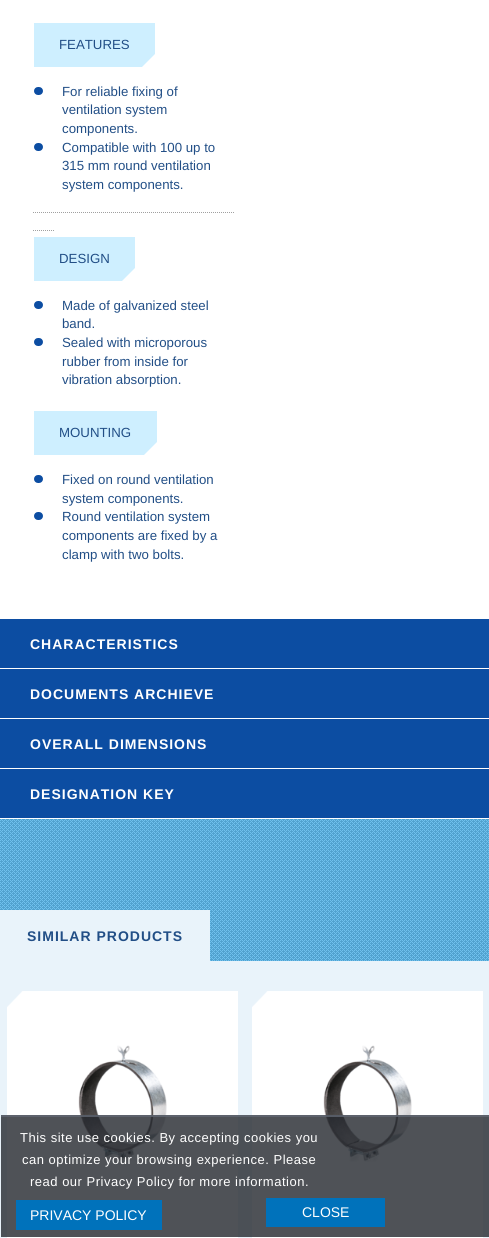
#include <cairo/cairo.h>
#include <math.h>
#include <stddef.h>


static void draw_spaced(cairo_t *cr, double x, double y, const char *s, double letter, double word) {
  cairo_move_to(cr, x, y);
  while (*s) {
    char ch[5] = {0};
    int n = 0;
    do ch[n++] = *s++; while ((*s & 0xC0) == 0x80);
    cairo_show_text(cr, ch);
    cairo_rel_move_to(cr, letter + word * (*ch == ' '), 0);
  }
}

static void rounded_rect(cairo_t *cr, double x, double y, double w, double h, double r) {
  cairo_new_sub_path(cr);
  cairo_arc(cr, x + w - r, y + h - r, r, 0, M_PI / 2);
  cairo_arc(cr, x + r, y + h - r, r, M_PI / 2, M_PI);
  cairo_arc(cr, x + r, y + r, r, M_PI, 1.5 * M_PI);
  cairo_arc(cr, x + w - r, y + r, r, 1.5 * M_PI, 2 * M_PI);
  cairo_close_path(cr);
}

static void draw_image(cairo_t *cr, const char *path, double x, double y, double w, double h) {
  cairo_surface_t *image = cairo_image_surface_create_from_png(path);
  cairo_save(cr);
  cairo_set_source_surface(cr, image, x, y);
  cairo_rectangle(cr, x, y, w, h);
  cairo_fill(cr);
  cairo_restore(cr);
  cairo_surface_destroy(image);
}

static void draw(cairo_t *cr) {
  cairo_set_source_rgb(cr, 1, 1, 1);
  cairo_paint(cr);
  draw_image(cr, "images/1.png", 0, 819, 489, 142);
  cairo_new_path(cr);
  cairo_move_to(cr, 33, 212.5);
  cairo_line_to(cr, 234, 212.5);
  cairo_set_source_rgb(cr, 160 / 255.0, 160 / 255.0, 160 / 255.0);
  cairo_set_line_width(cr, 1);
  cairo_set_dash(cr, (double[]){1, 1}, 2, 0);
  cairo_stroke(cr);
  cairo_set_source_rgb(cr, 206 / 255.0, 239 / 255.0, 1);
  cairo_rectangle(cr, 34, 23, 121, 44);
  cairo_fill(cr);
  cairo_set_source_rgb(cr, 1, 1, 1);
  cairo_new_path(cr);
  cairo_move_to(cr, 155, 54);
  cairo_line_to(cr, 155, 75);
  cairo_line_to(cr, 134, 75);
  cairo_close_path(cr);
  cairo_fill(cr);
  rounded_rect(cr, 35.5, 88.5, 6, 5, 2.5);
  cairo_set_source_rgb(cr, 12 / 255.0, 77 / 255.0, 162 / 255.0);
  cairo_set_line_width(cr, 3);
  cairo_set_dash(cr, NULL, 0, 0);
  cairo_stroke(cr);
  cairo_rectangle(cr, 36, 90, 5, 2);
  cairo_fill(cr);
  rounded_rect(cr, 35.5, 144.5, 6, 5, 2.5);
  cairo_stroke(cr);
  cairo_rectangle(cr, 36, 146, 5, 2);
  cairo_fill(cr);
  cairo_new_path(cr);
  cairo_move_to(cr, 33, 230.5);
  cairo_line_to(cr, 54, 230.5);
  cairo_set_source_rgb(cr, 160 / 255.0, 160 / 255.0, 160 / 255.0);
  cairo_set_line_width(cr, 1);
  cairo_set_dash(cr, (double[]){1, 1}, 2, 0);
  cairo_stroke(cr);
  cairo_set_source_rgb(cr, 206 / 255.0, 239 / 255.0, 1);
  cairo_rectangle(cr, 34, 237, 101, 44);
  cairo_fill(cr);
  cairo_set_source_rgb(cr, 1, 1, 1);
  cairo_new_path(cr);
  cairo_move_to(cr, 135, 268);
  cairo_line_to(cr, 135, 289);
  cairo_line_to(cr, 114, 289);
  cairo_close_path(cr);
  cairo_fill(cr);
  rounded_rect(cr, 35.5, 302.5, 6, 5, 2.5);
  cairo_set_source_rgb(cr, 12 / 255.0, 77 / 255.0, 162 / 255.0);
  cairo_set_line_width(cr, 3);
  cairo_set_dash(cr, NULL, 0, 0);
  cairo_stroke(cr);
  cairo_rectangle(cr, 36, 304, 5, 2);
  cairo_fill(cr);
  rounded_rect(cr, 35.5, 339.5, 6, 5, 2.5);
  cairo_stroke(cr);
  cairo_rectangle(cr, 36, 341, 5, 2);
  cairo_fill(cr);
  cairo_set_source_rgb(cr, 206 / 255.0, 239 / 255.0, 1);
  cairo_rectangle(cr, 34, 411, 123, 44);
  cairo_fill(cr);
  cairo_set_source_rgb(cr, 1, 1, 1);
  cairo_new_path(cr);
  cairo_move_to(cr, 157, 442);
  cairo_line_to(cr, 157, 463);
  cairo_line_to(cr, 136, 463);
  cairo_close_path(cr);
  cairo_fill(cr);
  rounded_rect(cr, 35.5, 476.5, 6, 5, 2.5);
  cairo_set_source_rgb(cr, 12 / 255.0, 77 / 255.0, 162 / 255.0);
  cairo_stroke(cr);
  cairo_rectangle(cr, 36, 478, 5, 2);
  cairo_fill(cr);
  rounded_rect(cr, 35.5, 513.5, 6, 5, 2.5);
  cairo_stroke(cr);
  cairo_rectangle(cr, 36, 515, 5, 2);
  cairo_fill(cr);
  cairo_rectangle(cr, 0, 619, 489, 49);
  cairo_fill(cr);
  cairo_rectangle(cr, 0, 669, 489, 49);
  cairo_fill(cr);
  cairo_rectangle(cr, 0, 719, 489, 49);
  cairo_fill(cr);
  cairo_rectangle(cr, 0, 769, 489, 49);
  cairo_fill(cr);
  cairo_set_source_rgb(cr, 233 / 255.0, 243 / 255.0, 250 / 255.0);
  cairo_rectangle(cr, 0, 910, 210, 51);
  cairo_fill(cr);
  cairo_rectangle(cr, 0, 961, 489, 277);
  cairo_fill(cr);
  draw_image(cr, "images/2.png", 7, 991, 31, 30);
  cairo_set_source_rgb(cr, 1, 1, 1);
  cairo_rectangle(cr, 38, 991, 200, 30);
  cairo_fill(cr);
  cairo_rectangle(cr, 7, 1021, 231, 217);
  cairo_fill(cr);
  draw_image(cr, "images/3.png", 78, 1045, 89, 117);
  draw_image(cr, "images/2.png", 252, 991, 31, 30);
  cairo_rectangle(cr, 283, 991, 200, 30);
  cairo_fill(cr);
  cairo_rectangle(cr, 252, 1021, 231, 217);
  cairo_fill(cr);
  draw_image(cr, "images/3.png", 323, 1045, 89, 117);
  cairo_set_source_rgba(cr, 35 / 255.0, 39 / 255.0, 46 / 255.0, 0.8);
  cairo_rectangle(cr, 1, 1115, 488, 122);
  cairo_fill(cr);
  cairo_set_source_rgba(cr, 96 / 255.0, 103 / 255.0, 114 / 255.0, 0.8);
  cairo_rectangle(cr, 1, 1115, 488, 2);
  cairo_fill(cr);
  cairo_set_source_rgb(cr, 0, 114 / 255.0, 187 / 255.0);
  cairo_rectangle(cr, 16, 1200, 146, 30);
  cairo_fill(cr);
  cairo_rectangle(cr, 266, 1198, 119, 29);
  cairo_fill(cr);
  cairo_select_font_face(cr, "Liberation Sans", CAIRO_FONT_SLANT_NORMAL, CAIRO_FONT_WEIGHT_NORMAL);
  cairo_set_font_size(cr, 13.25);
  cairo_set_source_rgb(cr, 33 / 255.0, 78 / 255.0, 134 / 255.0);
  cairo_move_to(cr, 59, 49);
  cairo_show_text(cr, "FEATURES");
  cairo_move_to(cr, 62, 96);
  cairo_show_text(cr, "For reliable fixing of");
  cairo_move_to(cr, 62, 114);
  cairo_show_text(cr, "ventilation system");
  cairo_move_to(cr, 62, 133);
  cairo_show_text(cr, "components.");
  cairo_move_to(cr, 62, 152);
  cairo_show_text(cr, "Compatible with 100 up to");
  cairo_move_to(cr, 62, 170);
  cairo_show_text(cr, "315 mm round ventilation");
  cairo_move_to(cr, 62, 189);
  cairo_show_text(cr, "system components.");
  cairo_move_to(cr, 59, 263);
  cairo_show_text(cr, "DESIGN");
  cairo_move_to(cr, 62, 310);
  cairo_show_text(cr, "Made of galvanized steel");
  cairo_move_to(cr, 62, 328);
  cairo_show_text(cr, "band.");
  cairo_move_to(cr, 62, 347);
  cairo_show_text(cr, "Sealed with microporous");
  cairo_move_to(cr, 62, 366);
  cairo_show_text(cr, "rubber from inside for");
  cairo_move_to(cr, 62, 384);
  cairo_show_text(cr, "vibration absorption.");
  cairo_move_to(cr, 59, 437);
  cairo_show_text(cr, "MOUNTING");
  cairo_move_to(cr, 62, 484);
  cairo_show_text(cr, "Fixed on round ventilation");
  cairo_move_to(cr, 62, 503);
  cairo_show_text(cr, "system components.");
  cairo_move_to(cr, 62, 521);
  cairo_show_text(cr, "Round ventilation system");
  cairo_move_to(cr, 62, 540);
  cairo_show_text(cr, "components are fixed by a");
  cairo_move_to(cr, 62, 559);
  cairo_show_text(cr, "clamp with two bolts.");
  cairo_select_font_face(cr, "Liberation Sans", CAIRO_FONT_SLANT_NORMAL, CAIRO_FONT_WEIGHT_BOLD);
  cairo_set_font_size(cr, 14);
  cairo_set_source_rgb(cr, 1, 1, 1);
  draw_spaced(cr, 30, 649, "CHARACTERISTICS", 1, 0);
  draw_spaced(cr, 30, 699, "DOCUMENTS ARCHIEVE", 1, 0);
  draw_spaced(cr, 30, 749, "OVERALL DIMENSIONS", 1, 0);
  draw_spaced(cr, 30, 799, "DESIGNATION KEY", 1, 0);
  cairo_set_source_rgb(cr, 33 / 255.0, 78 / 255.0, 134 / 255.0);
  draw_spaced(cr, 27, 941, "SIMILAR PRODUCTS", 1, 0);
  cairo_select_font_face(cr, "Liberation Sans", CAIRO_FONT_SLANT_NORMAL, CAIRO_FONT_WEIGHT_NORMAL);
  cairo_set_font_size(cr, 13);
  cairo_set_source_rgb(cr, 1, 1, 1);
  draw_spaced(cr, 20, 1142, "This site use cookies. By accepting cookies you", 0.5, 0);
  draw_spaced(cr, 22, 1164, "can optimize your browsing experience. Please", 0.5, 0);
  draw_spaced(cr, 30, 1186, "read our Privacy Policy for more information.", 0.5, 0);
  cairo_set_font_size(cr, 14);
  cairo_move_to(cr, 30, 1220);
  cairo_show_text(cr, "PRIVACY POLICY");
  cairo_move_to(cr, 302, 1217);
  cairo_show_text(cr, "CLOSE");
}

int main(void) {
  cairo_surface_t *surface = cairo_image_surface_create(CAIRO_FORMAT_RGB24, 489, 1238);
  cairo_t *cr = cairo_create(surface);
  cairo_font_options_t *options = cairo_font_options_create();
  cairo_font_options_set_hint_metrics(options, CAIRO_HINT_METRICS_OFF);
  cairo_font_options_set_hint_style(options, CAIRO_HINT_STYLE_NONE);
  cairo_set_font_options(cr, options);
  cairo_set_miter_limit(cr, 4);
  draw(cr);
  cairo_surface_write_to_png(surface, "out.png");
  cairo_font_options_destroy(options);
  cairo_destroy(cr);
  cairo_surface_destroy(surface);
  return 0;
}
